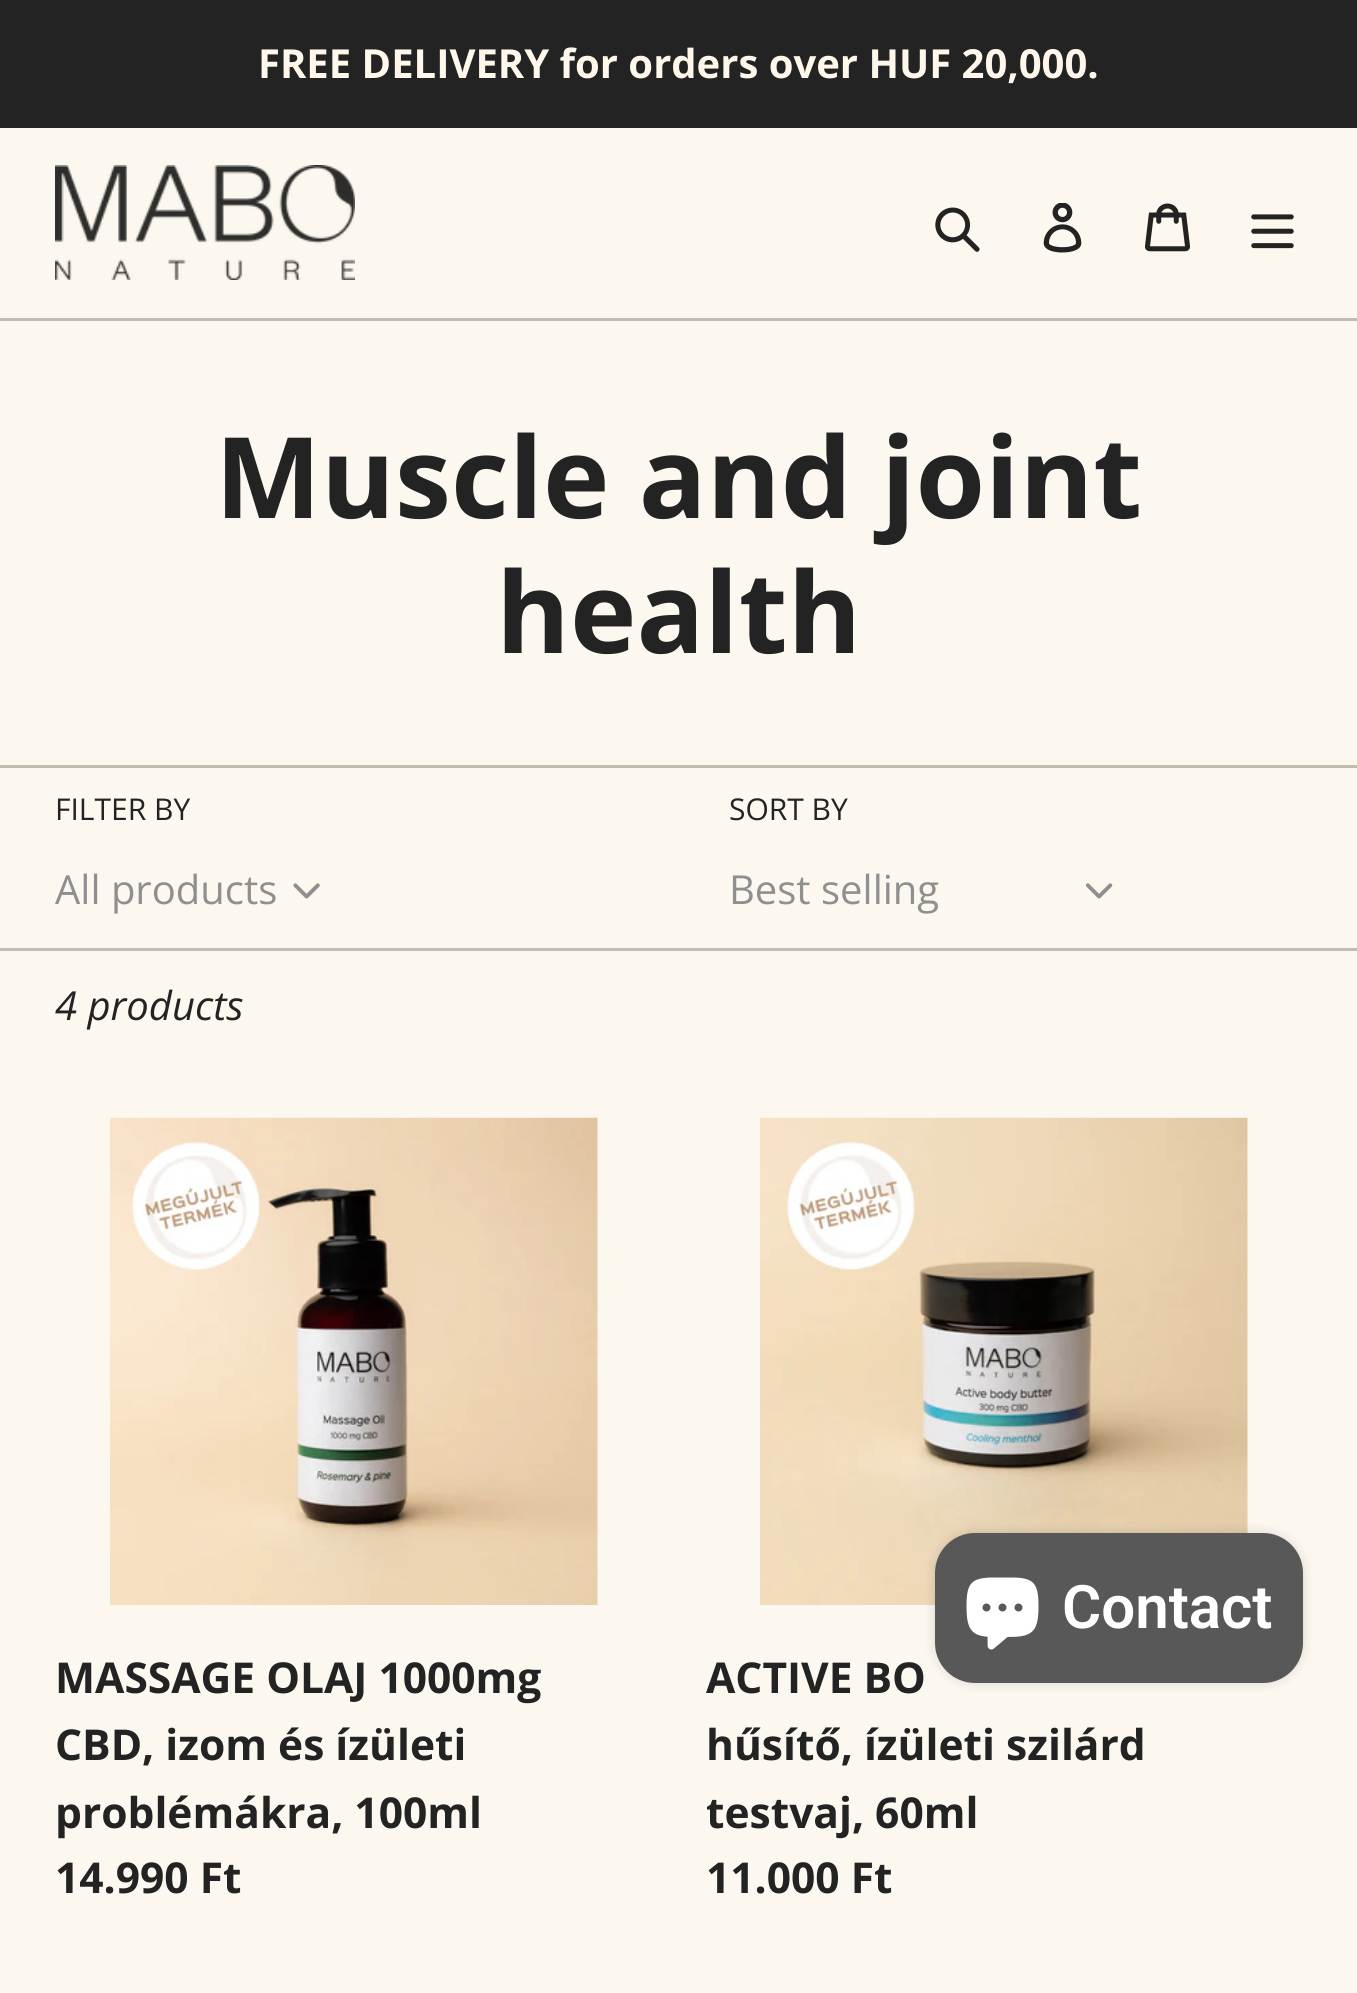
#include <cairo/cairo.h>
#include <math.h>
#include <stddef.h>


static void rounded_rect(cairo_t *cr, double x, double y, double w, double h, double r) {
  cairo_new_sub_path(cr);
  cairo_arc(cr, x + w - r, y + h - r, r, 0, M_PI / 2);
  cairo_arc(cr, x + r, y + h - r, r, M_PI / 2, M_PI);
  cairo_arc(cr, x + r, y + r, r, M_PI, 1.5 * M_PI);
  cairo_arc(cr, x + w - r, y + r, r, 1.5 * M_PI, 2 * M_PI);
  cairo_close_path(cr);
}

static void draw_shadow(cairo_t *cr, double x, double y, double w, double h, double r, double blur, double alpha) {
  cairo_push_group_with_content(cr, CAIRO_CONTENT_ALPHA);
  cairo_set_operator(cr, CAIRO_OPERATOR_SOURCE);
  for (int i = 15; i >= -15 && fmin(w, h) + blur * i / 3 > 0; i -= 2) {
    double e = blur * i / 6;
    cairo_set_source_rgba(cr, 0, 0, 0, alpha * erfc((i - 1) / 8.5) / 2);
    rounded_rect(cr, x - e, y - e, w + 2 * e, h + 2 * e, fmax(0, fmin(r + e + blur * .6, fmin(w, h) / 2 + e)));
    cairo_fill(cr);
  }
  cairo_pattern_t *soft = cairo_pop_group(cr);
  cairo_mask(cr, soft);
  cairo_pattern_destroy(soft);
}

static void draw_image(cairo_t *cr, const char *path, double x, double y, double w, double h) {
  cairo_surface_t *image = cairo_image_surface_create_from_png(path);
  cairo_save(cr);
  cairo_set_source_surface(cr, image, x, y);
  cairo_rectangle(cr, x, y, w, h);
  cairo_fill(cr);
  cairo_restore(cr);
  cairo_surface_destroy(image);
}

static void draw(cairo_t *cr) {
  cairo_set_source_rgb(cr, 253 / 255.0, 248 / 255.0, 239 / 255.0);
  cairo_paint(cr);
  cairo_set_source_rgb(cr, 35 / 255.0, 35 / 255.0, 35 / 255.0);
  cairo_rectangle(cr, 0, 0, 1357, 128);
  cairo_fill(cr);
  cairo_set_source_rgb(cr, 196 / 255.0, 188 / 255.0, 175 / 255.0);
  cairo_rectangle(cr, 0, 318, 1357, 3);
  cairo_fill(cr);
  draw_image(cr, "images/1.png", 55, 165, 300, 115);
  draw_image(cr, "images/2.png", 935, 207, 45, 45);
  draw_image(cr, "images/3.png", 1043, 203, 39, 50);
  draw_image(cr, "images/4.png", 1145, 203, 45, 49);
  draw_image(cr, "images/5.png", 1251, 214, 43, 35);
  cairo_rectangle(cr, 0, 765, 1357, 3);
  cairo_fill(cr);
  draw_image(cr, "images/6.png", 293, 883, 27, 16);
  draw_image(cr, "images/7.png", 1085, 883, 28, 16);
  cairo_rectangle(cr, 0, 948, 1357, 3);
  cairo_fill(cr);
  draw_image(cr, "images/8.png", 110, 1117, 488, 488);
  draw_image(cr, "images/9.png", 760, 1117, 488, 488);
  cairo_set_source_rgb(cr, 0, 0, 0);
  draw_shadow(cr, 935, 1533, 368, 150, 40, 6, 0.15);
  cairo_set_source_rgb(cr, 88 / 255.0, 88 / 255.0, 88 / 255.0);
  rounded_rect(cr, 935, 1533, 368, 150, 40);
  cairo_fill(cr);
  draw_image(cr, "images/10.png", 966, 1577, 73, 73);
  cairo_select_font_face(cr, "Open Sans", CAIRO_FONT_SLANT_NORMAL, CAIRO_FONT_WEIGHT_BOLD);
  cairo_set_font_size(cr, 40);
  cairo_set_source_rgb(cr, 1, 247 / 255.0, 234 / 255.0);
  cairo_move_to(cr, 258, 78);
  cairo_show_text(cr, "FREE DELIVERY for orders over HUF 20,000.");
  cairo_set_font_size(cr, 112.5);
  cairo_set_source_rgb(cr, 35 / 255.0, 35 / 255.0, 35 / 255.0);
  cairo_move_to(cr, 215, 518);
  cairo_show_text(cr, "Muscle and joint");
  cairo_move_to(cr, 496, 653);
  cairo_show_text(cr, "health");
  cairo_select_font_face(cr, "Open Sans", CAIRO_FONT_SLANT_NORMAL, CAIRO_FONT_WEIGHT_NORMAL);
  cairo_set_font_size(cr, 30);
  cairo_move_to(cr, 55, 820);
  cairo_show_text(cr, "FILTER BY");
  cairo_set_font_size(cr, 40);
  cairo_set_source_rgb(cr, 143 / 255.0, 143 / 255.0, 143 / 255.0);
  cairo_move_to(cr, 55, 904);
  cairo_show_text(cr, "All products");
  cairo_set_font_size(cr, 30);
  cairo_set_source_rgb(cr, 35 / 255.0, 35 / 255.0, 35 / 255.0);
  cairo_move_to(cr, 729, 820);
  cairo_show_text(cr, "SORT BY");
  cairo_set_font_size(cr, 40);
  cairo_set_source_rgb(cr, 143 / 255.0, 143 / 255.0, 143 / 255.0);
  cairo_move_to(cr, 729, 904);
  cairo_show_text(cr, "Best selling");
  cairo_select_font_face(cr, "Open Sans", CAIRO_FONT_SLANT_ITALIC, CAIRO_FONT_WEIGHT_NORMAL);
  cairo_set_source_rgb(cr, 35 / 255.0, 35 / 255.0, 35 / 255.0);
  cairo_move_to(cr, 55, 1020);
  cairo_show_text(cr, "4 products");
  cairo_select_font_face(cr, "Open Sans", CAIRO_FONT_SLANT_NORMAL, CAIRO_FONT_WEIGHT_BOLD);
  cairo_set_font_size(cr, 42.5);
  cairo_move_to(cr, 55, 1693);
  cairo_show_text(cr, "MASSAGE OLAJ 1000mg");
  cairo_move_to(cr, 55, 1760);
  cairo_show_text(cr, "CBD, izom és ízületi");
  cairo_move_to(cr, 55, 1828);
  cairo_show_text(cr, "problémákra, 100ml");
  cairo_move_to(cr, 55, 1893);
  cairo_show_text(cr, "14.990 Ft");
  cairo_move_to(cr, 706, 1693);
  cairo_show_text(cr, "ACTIVE BO");
  cairo_move_to(cr, 706, 1760);
  cairo_show_text(cr, "hűsítő, ízületi szilárd");
  cairo_move_to(cr, 706, 1828);
  cairo_show_text(cr, "testvaj, 60ml");
  cairo_move_to(cr, 706, 1893);
  cairo_show_text(cr, "11.000 Ft");
  cairo_select_font_face(cr, "Roboto SemiBold", CAIRO_FONT_SLANT_NORMAL, CAIRO_FONT_WEIGHT_NORMAL);
  cairo_set_font_size(cr, 60);
  cairo_set_source_rgb(cr, 1, 1, 1);
  cairo_move_to(cr, 1062, 1628);
  cairo_show_text(cr, "Contact");
}

int main(void) {
  cairo_surface_t *surface = cairo_image_surface_create(CAIRO_FORMAT_RGB24, 1357, 1993);
  cairo_t *cr = cairo_create(surface);
  cairo_font_options_t *options = cairo_font_options_create();
  cairo_font_options_set_hint_metrics(options, CAIRO_HINT_METRICS_OFF);
  cairo_font_options_set_hint_style(options, CAIRO_HINT_STYLE_NONE);
  cairo_set_font_options(cr, options);
  cairo_set_miter_limit(cr, 4);
  draw(cr);
  cairo_surface_write_to_png(surface, "out.png");
  cairo_font_options_destroy(options);
  cairo_destroy(cr);
  cairo_surface_destroy(surface);
  return 0;
}
